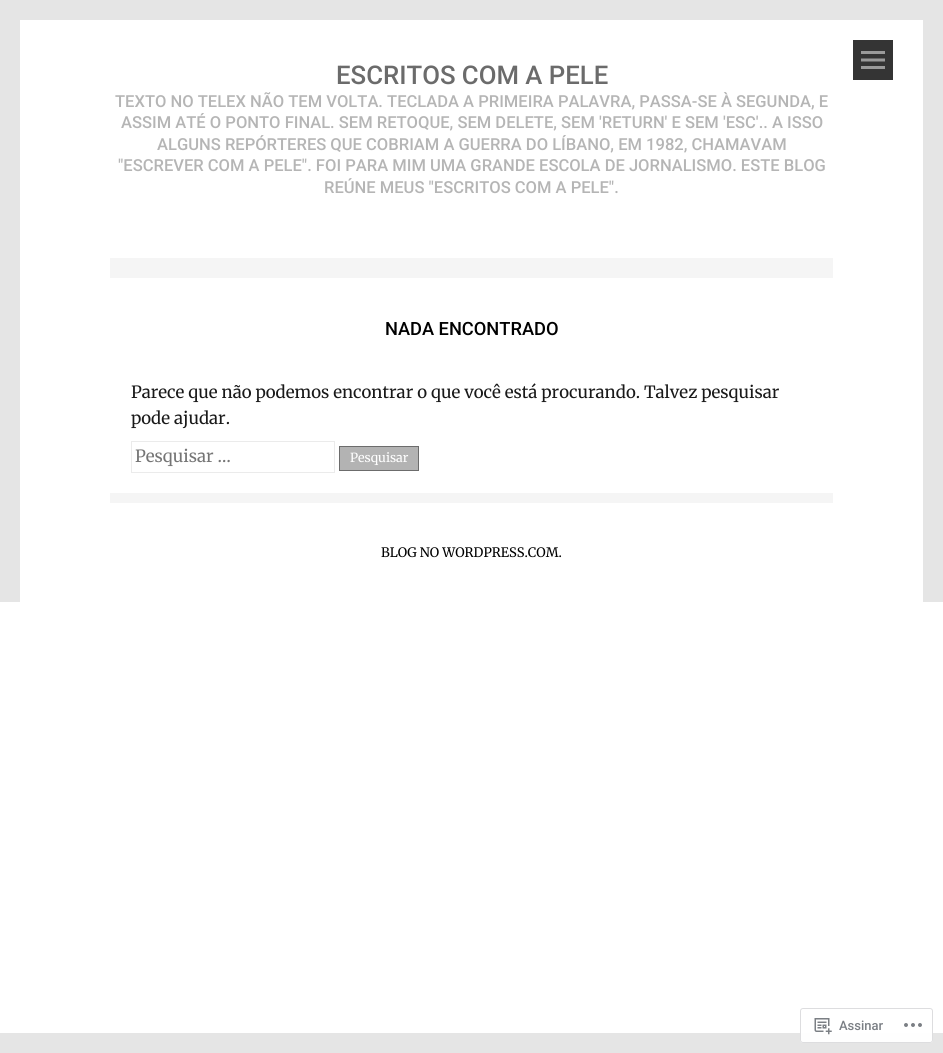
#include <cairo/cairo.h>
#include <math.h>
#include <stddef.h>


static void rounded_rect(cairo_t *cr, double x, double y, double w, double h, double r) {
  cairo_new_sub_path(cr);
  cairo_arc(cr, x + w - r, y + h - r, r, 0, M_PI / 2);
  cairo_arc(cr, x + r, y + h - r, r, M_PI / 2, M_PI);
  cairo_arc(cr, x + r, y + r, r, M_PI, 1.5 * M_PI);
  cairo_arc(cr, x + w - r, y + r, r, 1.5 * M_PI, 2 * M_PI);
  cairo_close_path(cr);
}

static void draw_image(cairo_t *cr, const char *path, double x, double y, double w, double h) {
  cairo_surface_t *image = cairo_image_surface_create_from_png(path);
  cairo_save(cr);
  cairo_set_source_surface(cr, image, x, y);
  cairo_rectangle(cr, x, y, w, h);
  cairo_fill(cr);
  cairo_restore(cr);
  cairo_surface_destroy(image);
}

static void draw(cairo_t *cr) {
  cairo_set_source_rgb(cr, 1, 1, 1);
  cairo_paint(cr);
  cairo_set_source_rgb(cr, 229 / 255.0, 229 / 255.0, 229 / 255.0);
  cairo_rectangle(cr, 923, 20, 20, 582);
  cairo_fill(cr);
  cairo_rectangle(cr, 0, 20, 20, 582);
  cairo_fill(cr);
  cairo_rectangle(cr, 0, 0, 943, 20);
  cairo_fill(cr);
  cairo_set_source_rgb(cr, 245 / 255.0, 245 / 255.0, 245 / 255.0);
  cairo_rectangle(cr, 110, 258, 723, 20);
  cairo_fill(cr);
  cairo_set_source_rgb(cr, 52 / 255.0, 52 / 255.0, 52 / 255.0);
  cairo_rectangle(cr, 853, 40, 40, 40);
  cairo_fill(cr);
  draw_image(cr, "images/1.png", 861, 51, 24, 18);
  cairo_set_source_rgb(cr, 245 / 255.0, 245 / 255.0, 245 / 255.0);
  cairo_rectangle(cr, 110, 493, 723, 10);
  cairo_fill(cr);
  cairo_rectangle(cr, 131.5, 441.5, 203, 31);
  cairo_set_source_rgb(cr, 235 / 255.0, 235 / 255.0, 235 / 255.0);
  cairo_set_line_width(cr, 1);
  cairo_stroke(cr);
  cairo_set_source_rgb(cr, 179 / 255.0, 179 / 255.0, 179 / 255.0);
  cairo_rectangle(cr, 339.5, 446.5, 79, 24);
  cairo_fill_preserve(cr);
  cairo_set_source_rgb(cr, 108 / 255.0, 108 / 255.0, 108 / 255.0);
  cairo_stroke(cr);
  cairo_set_source_rgb(cr, 229 / 255.0, 229 / 255.0, 229 / 255.0);
  cairo_rectangle(cr, 0, 1033, 943, 20);
  cairo_fill(cr);
  cairo_set_source_rgba(cr, 1, 1, 1, 0.98);
  rounded_rect(cr, 800, 1008, 133, 35, 3);
  cairo_fill(cr);
  rounded_rect(cr, 800.5, 1008.5, 132, 34, 2.5);
  cairo_set_source_rgba(cr, 220 / 255.0, 220 / 255.0, 222 / 255.0, 0.98);
  cairo_stroke(cr);
  draw_image(cr, "images/2.png", 814, 1018, 18, 17);
  draw_image(cr, "images/3.png", 904, 1023, 18, 4);
  cairo_select_font_face(cr, "Roboto Medium", CAIRO_FONT_SLANT_NORMAL, CAIRO_FONT_WEIGHT_NORMAL);
  cairo_set_font_size(cr, 25.75);
  cairo_set_source_rgb(cr, 107 / 255.0, 107 / 255.0, 107 / 255.0);
  cairo_move_to(cr, 336, 84);
  cairo_show_text(cr, "ESCRITOS COM A PELE");
  cairo_set_font_size(cr, 16.55);
  cairo_set_source_rgb(cr, 181 / 255.0, 181 / 255.0, 181 / 255.0);
  cairo_move_to(cr, 115, 107);
  cairo_show_text(cr, "TEXTO NO TELEX NÃO TEM VOLTA. TECLADA A PRIMEIRA PALAVRA, PASSA-SE À SEGUNDA, E");
  cairo_move_to(cr, 121, 128);
  cairo_show_text(cr, "ASSIM ATÉ O PONTO FINAL. SEM RETOQUE, SEM DELETE, SEM 'RETURN' E SEM 'ESC'.. A ISSO");
  cairo_move_to(cr, 157, 150);
  cairo_show_text(cr, "ALGUNS REPÓRTERES QUE COBRIAM A GUERRA DO LÍBANO, EM 1982, CHAMAVAM");
  cairo_move_to(cr, 118, 171);
  cairo_show_text(cr, "\"ESCREVER COM A PELE\". FOI PARA MIM UMA GRANDE ESCOLA DE JORNALISMO. ESTE BLOG");
  cairo_move_to(cr, 324, 193);
  cairo_show_text(cr, "REÚNE MEUS \"ESCRITOS COM A PELE\".");
  cairo_set_font_size(cr, 18.25);
  cairo_set_source_rgb(cr, 0, 0, 0);
  cairo_move_to(cr, 385, 335);
  cairo_show_text(cr, "NADA ENCONTRADO");
  cairo_select_font_face(cr, "Merriweather", CAIRO_FONT_SLANT_NORMAL, CAIRO_FONT_WEIGHT_NORMAL);
  cairo_set_font_size(cr, 16.8);
  cairo_set_source_rgb(cr, 25 / 255.0, 25 / 255.0, 25 / 255.0);
  cairo_move_to(cr, 131, 398);
  cairo_show_text(cr, "Parece que não podemos encontrar o que você está procurando. Talvez pesquisar");
  cairo_move_to(cr, 131, 424);
  cairo_show_text(cr, "pode ajudar.");
  cairo_set_source_rgb(cr, 117 / 255.0, 117 / 255.0, 117 / 255.0);
  cairo_move_to(cr, 135, 462);
  cairo_show_text(cr, "Pesquisar …");
  cairo_set_font_size(cr, 12.5);
  cairo_set_source_rgb(cr, 1, 1, 1);
  cairo_move_to(cr, 350, 462);
  cairo_show_text(cr, "Pesquisar");
  cairo_set_font_size(cr, 13);
  cairo_set_source_rgb(cr, 0, 0, 0);
  cairo_move_to(cr, 381, 557);
  cairo_show_text(cr, "BLOG NO WORDPRESS.COM.");
  cairo_select_font_face(cr, "Roboto Medium", CAIRO_FONT_SLANT_NORMAL, CAIRO_FONT_WEIGHT_NORMAL);
  cairo_set_source_rgb(cr, 123 / 255.0, 127 / 255.0, 133 / 255.0);
  cairo_move_to(cr, 839, 1030);
  cairo_show_text(cr, "Assinar");
}

int main(void) {
  cairo_surface_t *surface = cairo_image_surface_create(CAIRO_FORMAT_RGB24, 943, 1053);
  cairo_t *cr = cairo_create(surface);
  cairo_font_options_t *options = cairo_font_options_create();
  cairo_font_options_set_hint_metrics(options, CAIRO_HINT_METRICS_OFF);
  cairo_font_options_set_hint_style(options, CAIRO_HINT_STYLE_NONE);
  cairo_set_font_options(cr, options);
  cairo_set_miter_limit(cr, 4);
  draw(cr);
  cairo_surface_write_to_png(surface, "out.png");
  cairo_font_options_destroy(options);
  cairo_destroy(cr);
  cairo_surface_destroy(surface);
  return 0;
}
